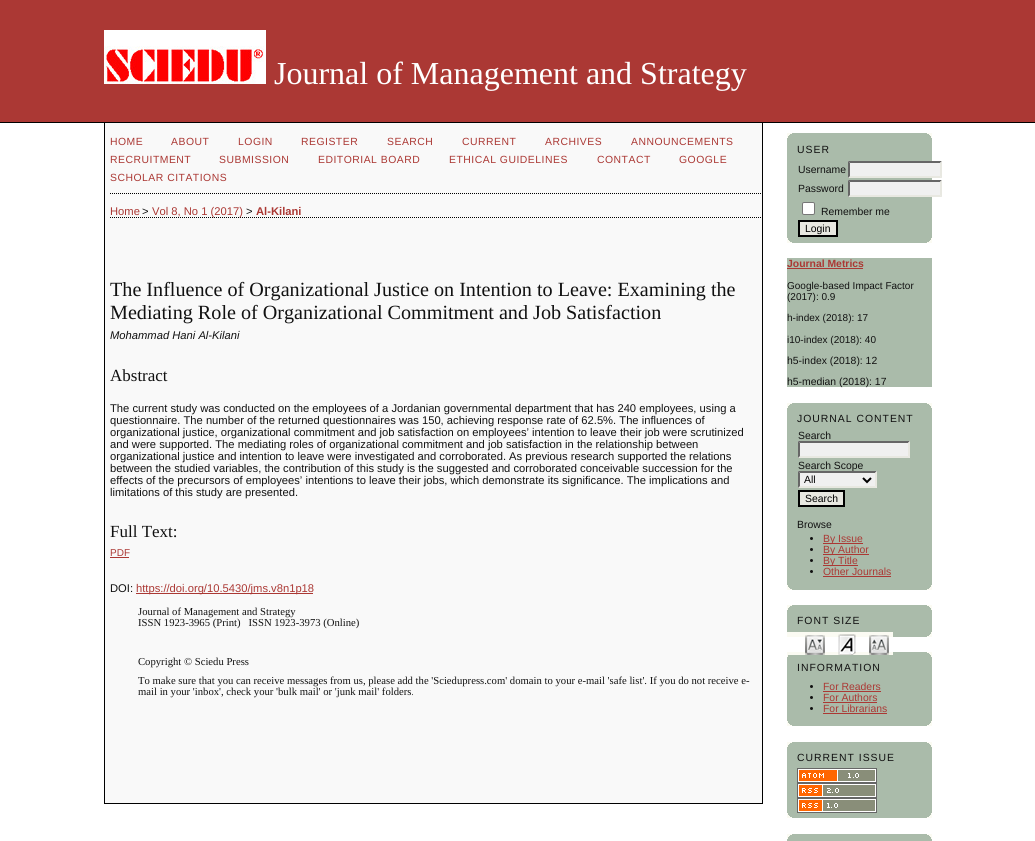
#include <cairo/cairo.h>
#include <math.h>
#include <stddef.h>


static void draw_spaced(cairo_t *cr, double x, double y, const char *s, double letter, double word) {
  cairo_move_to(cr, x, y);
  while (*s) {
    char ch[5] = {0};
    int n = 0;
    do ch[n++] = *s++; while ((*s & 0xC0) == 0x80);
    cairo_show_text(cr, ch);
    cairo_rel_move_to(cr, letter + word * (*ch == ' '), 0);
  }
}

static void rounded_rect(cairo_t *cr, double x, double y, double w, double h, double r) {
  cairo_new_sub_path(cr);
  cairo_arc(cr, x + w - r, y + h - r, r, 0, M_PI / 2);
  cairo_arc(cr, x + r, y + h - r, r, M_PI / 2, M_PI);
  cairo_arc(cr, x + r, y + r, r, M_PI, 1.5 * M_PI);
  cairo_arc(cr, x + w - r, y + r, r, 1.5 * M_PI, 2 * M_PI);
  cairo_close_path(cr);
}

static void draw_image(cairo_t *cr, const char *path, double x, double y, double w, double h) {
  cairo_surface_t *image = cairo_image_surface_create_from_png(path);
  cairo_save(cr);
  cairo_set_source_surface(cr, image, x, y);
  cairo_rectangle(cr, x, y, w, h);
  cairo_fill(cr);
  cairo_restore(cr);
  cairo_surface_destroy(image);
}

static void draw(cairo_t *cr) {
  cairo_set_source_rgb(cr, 1, 1, 1);
  cairo_paint(cr);
  cairo_set_source_rgb(cr, 171 / 255.0, 56 / 255.0, 52 / 255.0);
  cairo_rectangle(cr, 0, 0, 1035, 122);
  cairo_fill(cr);
  cairo_set_source_rgb(cr, 0, 0, 0);
  cairo_rectangle(cr, 0, 122, 1035, 1);
  cairo_fill(cr);
  draw_image(cr, "images/1.png", 104, 30, 162, 54);
  cairo_set_source_rgb(cr, 249 / 255.0, 249 / 255.0, 249 / 255.0);
  cairo_rectangle(cr, 105, 123, 657, 680);
  cairo_fill(cr);
  cairo_set_source_rgb(cr, 0, 0, 0);
  cairo_rectangle(cr, 762, 123, 1, 681);
  cairo_fill(cr);
  cairo_rectangle(cr, 104, 803, 659, 1);
  cairo_fill(cr);
  cairo_rectangle(cr, 104, 123, 1, 681);
  cairo_fill(cr);
  cairo_new_path(cr);
  cairo_move_to(cr, 110, 193.5);
  cairo_line_to(cr, 762, 193.5);
  cairo_set_line_width(cr, 1);
  cairo_set_dash(cr, (double[]){1, 1}, 2, 0);
  cairo_stroke(cr);
  cairo_new_path(cr);
  cairo_move_to(cr, 110, 217.5);
  cairo_line_to(cr, 762, 217.5);
  cairo_stroke(cr);
  cairo_set_source_rgb(cr, 171 / 255.0, 56 / 255.0, 52 / 255.0);
  cairo_rectangle(cr, 110, 557, 19, 1);
  cairo_fill(cr);
  cairo_rectangle(cr, 136, 593, 177, 1);
  cairo_fill(cr);
  cairo_set_source_rgb(cr, 170 / 255.0, 187 / 255.0, 170 / 255.0);
  cairo_rectangle(cr, 787, 138, 145, 100);
  cairo_fill(cr);
  cairo_set_source_rgb(cr, 251 / 255.0, 251 / 255.0, 243 / 255.0);
  cairo_rectangle(cr, 787, 133, 145, 5);
  cairo_fill(cr);
  cairo_set_source_rgb(cr, 170 / 255.0, 187 / 255.0, 170 / 255.0);
  cairo_rectangle(cr, 792, 133, 135, 1);
  cairo_fill(cr);
  cairo_rectangle(cr, 790, 134, 139, 1);
  cairo_fill(cr);
  cairo_rectangle(cr, 789, 135, 141, 1);
  cairo_fill(cr);
  cairo_rectangle(cr, 788, 136, 143, 2);
  cairo_fill(cr);
  cairo_set_source_rgb(cr, 240 / 255.0, 240 / 255.0, 240 / 255.0);
  cairo_rectangle(cr, 848, 161, 94, 17);
  cairo_fill(cr);
  cairo_set_source_rgb(cr, 102 / 255.0, 102 / 255.0, 102 / 255.0);
  cairo_new_path(cr);
  cairo_move_to(cr, 848, 161);
  cairo_line_to(cr, 942, 161);
  cairo_line_to(cr, 940, 163);
  cairo_line_to(cr, 850, 163);
  cairo_close_path(cr);
  cairo_fill(cr);
  cairo_set_source_rgb(cr, 232 / 255.0, 232 / 255.0, 225 / 255.0);
  cairo_new_path(cr);
  cairo_move_to(cr, 942, 161);
  cairo_line_to(cr, 942, 178);
  cairo_line_to(cr, 940, 176);
  cairo_line_to(cr, 940, 163);
  cairo_close_path(cr);
  cairo_fill(cr);
  cairo_new_path(cr);
  cairo_move_to(cr, 942, 178);
  cairo_line_to(cr, 848, 178);
  cairo_line_to(cr, 850, 176);
  cairo_line_to(cr, 940, 176);
  cairo_close_path(cr);
  cairo_fill(cr);
  cairo_set_source_rgb(cr, 102 / 255.0, 102 / 255.0, 102 / 255.0);
  cairo_new_path(cr);
  cairo_move_to(cr, 848, 178);
  cairo_line_to(cr, 848, 161);
  cairo_line_to(cr, 850, 163);
  cairo_line_to(cr, 850, 176);
  cairo_close_path(cr);
  cairo_fill(cr);
  cairo_set_source_rgb(cr, 240 / 255.0, 240 / 255.0, 240 / 255.0);
  cairo_rectangle(cr, 848, 180, 94, 17);
  cairo_fill(cr);
  cairo_set_source_rgb(cr, 102 / 255.0, 102 / 255.0, 102 / 255.0);
  cairo_new_path(cr);
  cairo_move_to(cr, 848, 180);
  cairo_line_to(cr, 942, 180);
  cairo_line_to(cr, 940, 182);
  cairo_line_to(cr, 850, 182);
  cairo_close_path(cr);
  cairo_fill(cr);
  cairo_set_source_rgb(cr, 232 / 255.0, 232 / 255.0, 225 / 255.0);
  cairo_new_path(cr);
  cairo_move_to(cr, 942, 180);
  cairo_line_to(cr, 942, 197);
  cairo_line_to(cr, 940, 195);
  cairo_line_to(cr, 940, 182);
  cairo_close_path(cr);
  cairo_fill(cr);
  cairo_new_path(cr);
  cairo_move_to(cr, 942, 197);
  cairo_line_to(cr, 848, 197);
  cairo_line_to(cr, 850, 195);
  cairo_line_to(cr, 940, 195);
  cairo_close_path(cr);
  cairo_fill(cr);
  cairo_set_source_rgb(cr, 102 / 255.0, 102 / 255.0, 102 / 255.0);
  cairo_new_path(cr);
  cairo_move_to(cr, 848, 197);
  cairo_line_to(cr, 848, 180);
  cairo_line_to(cr, 850, 182);
  cairo_line_to(cr, 850, 195);
  cairo_close_path(cr);
  cairo_fill(cr);
  cairo_set_source_rgb(cr, 1, 1, 1);
  rounded_rect(cr, 802.5, 202.5, 12, 12, 1.5);
  cairo_fill_preserve(cr);
  cairo_set_source_rgb(cr, 118 / 255.0, 118 / 255.0, 118 / 255.0);
  cairo_set_dash(cr, NULL, 0, 0);
  cairo_stroke(cr);
  cairo_set_source_rgb(cr, 232 / 255.0, 232 / 255.0, 225 / 255.0);
  cairo_rectangle(cr, 799, 221, 38, 15);
  cairo_fill_preserve(cr);
  cairo_set_source_rgb(cr, 0, 0, 0);
  cairo_set_line_width(cr, 2);
  cairo_stroke(cr);
  cairo_set_source_rgb(cr, 251 / 255.0, 251 / 255.0, 243 / 255.0);
  cairo_rectangle(cr, 787, 238, 145, 5);
  cairo_fill(cr);
  cairo_set_source_rgb(cr, 170 / 255.0, 187 / 255.0, 170 / 255.0);
  cairo_rectangle(cr, 788, 238, 143, 2);
  cairo_fill(cr);
  cairo_rectangle(cr, 789, 240, 141, 1);
  cairo_fill(cr);
  cairo_rectangle(cr, 790, 241, 139, 1);
  cairo_fill(cr);
  cairo_rectangle(cr, 792, 242, 135, 1);
  cairo_fill(cr);
  cairo_rectangle(cr, 787, 258, 145, 129);
  cairo_fill(cr);
  cairo_set_source_rgb(cr, 171 / 255.0, 56 / 255.0, 52 / 255.0);
  cairo_rectangle(cr, 787, 268, 76, 1);
  cairo_fill(cr);
  cairo_set_source_rgb(cr, 170 / 255.0, 187 / 255.0, 170 / 255.0);
  cairo_rectangle(cr, 787, 408, 145, 177);
  cairo_fill(cr);
  cairo_set_source_rgb(cr, 251 / 255.0, 251 / 255.0, 243 / 255.0);
  cairo_rectangle(cr, 787, 403, 145, 5);
  cairo_fill(cr);
  cairo_set_source_rgb(cr, 170 / 255.0, 187 / 255.0, 170 / 255.0);
  cairo_rectangle(cr, 792, 403, 135, 1);
  cairo_fill(cr);
  cairo_rectangle(cr, 790, 404, 139, 1);
  cairo_fill(cr);
  cairo_rectangle(cr, 789, 405, 141, 1);
  cairo_fill(cr);
  cairo_rectangle(cr, 788, 406, 143, 2);
  cairo_fill(cr);
  cairo_set_source_rgb(cr, 240 / 255.0, 240 / 255.0, 240 / 255.0);
  cairo_rectangle(cr, 798, 441, 112, 17);
  cairo_fill(cr);
  cairo_set_source_rgb(cr, 102 / 255.0, 102 / 255.0, 102 / 255.0);
  cairo_new_path(cr);
  cairo_move_to(cr, 798, 441);
  cairo_line_to(cr, 910, 441);
  cairo_line_to(cr, 908, 443);
  cairo_line_to(cr, 800, 443);
  cairo_close_path(cr);
  cairo_fill(cr);
  cairo_set_source_rgb(cr, 232 / 255.0, 232 / 255.0, 225 / 255.0);
  cairo_new_path(cr);
  cairo_move_to(cr, 910, 441);
  cairo_line_to(cr, 910, 458);
  cairo_line_to(cr, 908, 456);
  cairo_line_to(cr, 908, 443);
  cairo_close_path(cr);
  cairo_fill(cr);
  cairo_new_path(cr);
  cairo_move_to(cr, 910, 458);
  cairo_line_to(cr, 798, 458);
  cairo_line_to(cr, 800, 456);
  cairo_line_to(cr, 908, 456);
  cairo_close_path(cr);
  cairo_fill(cr);
  cairo_set_source_rgb(cr, 102 / 255.0, 102 / 255.0, 102 / 255.0);
  cairo_new_path(cr);
  cairo_move_to(cr, 798, 458);
  cairo_line_to(cr, 798, 441);
  cairo_line_to(cr, 800, 443);
  cairo_line_to(cr, 800, 456);
  cairo_close_path(cr);
  cairo_fill(cr);
  cairo_set_source_rgb(cr, 232 / 255.0, 232 / 255.0, 225 / 255.0);
  cairo_rectangle(cr, 799, 491, 45, 15);
  cairo_fill_preserve(cr);
  cairo_set_source_rgb(cr, 0, 0, 0);
  cairo_stroke(cr);
  cairo_set_source_rgb(cr, 17 / 255.0, 17 / 255.0, 17 / 255.0);
  cairo_arc(cr, 811.5, 538.5, 1.5, 0, 2 * M_PI);
  cairo_fill(cr);
  cairo_set_source_rgb(cr, 171 / 255.0, 56 / 255.0, 52 / 255.0);
  cairo_rectangle(cr, 823, 543, 40, 1);
  cairo_fill(cr);
  cairo_set_source_rgb(cr, 17 / 255.0, 17 / 255.0, 17 / 255.0);
  cairo_arc(cr, 811.5, 549.5, 1.5, 0, 2 * M_PI);
  cairo_fill(cr);
  cairo_set_source_rgb(cr, 171 / 255.0, 56 / 255.0, 52 / 255.0);
  cairo_rectangle(cr, 823, 554, 46, 1);
  cairo_fill(cr);
  cairo_set_source_rgb(cr, 17 / 255.0, 17 / 255.0, 17 / 255.0);
  cairo_arc(cr, 811.5, 560.5, 1.5, 0, 2 * M_PI);
  cairo_fill(cr);
  cairo_set_source_rgb(cr, 171 / 255.0, 56 / 255.0, 52 / 255.0);
  cairo_rectangle(cr, 823, 565, 35, 1);
  cairo_fill(cr);
  cairo_set_source_rgb(cr, 17 / 255.0, 17 / 255.0, 17 / 255.0);
  cairo_arc(cr, 811.5, 571.5, 1.5, 0, 2 * M_PI);
  cairo_fill(cr);
  cairo_set_source_rgb(cr, 171 / 255.0, 56 / 255.0, 52 / 255.0);
  cairo_rectangle(cr, 823, 576, 68, 1);
  cairo_fill(cr);
  cairo_set_source_rgb(cr, 251 / 255.0, 251 / 255.0, 243 / 255.0);
  cairo_rectangle(cr, 787, 585, 145, 5);
  cairo_fill(cr);
  cairo_set_source_rgb(cr, 170 / 255.0, 187 / 255.0, 170 / 255.0);
  cairo_rectangle(cr, 788, 585, 143, 2);
  cairo_fill(cr);
  cairo_rectangle(cr, 789, 587, 141, 1);
  cairo_fill(cr);
  cairo_rectangle(cr, 790, 588, 139, 1);
  cairo_fill(cr);
  cairo_rectangle(cr, 792, 589, 135, 1);
  cairo_fill(cr);
  cairo_rectangle(cr, 787, 610, 145, 22);
  cairo_fill(cr);
  cairo_set_source_rgb(cr, 251 / 255.0, 251 / 255.0, 243 / 255.0);
  cairo_rectangle(cr, 787, 605, 145, 5);
  cairo_fill(cr);
  cairo_set_source_rgb(cr, 170 / 255.0, 187 / 255.0, 170 / 255.0);
  cairo_rectangle(cr, 792, 605, 135, 1);
  cairo_fill(cr);
  cairo_rectangle(cr, 790, 606, 139, 1);
  cairo_fill(cr);
  cairo_rectangle(cr, 789, 607, 141, 1);
  cairo_fill(cr);
  cairo_rectangle(cr, 788, 608, 143, 2);
  cairo_fill(cr);
  cairo_set_source_rgb(cr, 251 / 255.0, 251 / 255.0, 243 / 255.0);
  cairo_rectangle(cr, 787, 632, 145, 5);
  cairo_fill(cr);
  cairo_rectangle(cr, 787, 652, 145, 5);
  cairo_fill(cr);
  draw_image(cr, "images/2.png", 805, 635, 20, 20);
  draw_image(cr, "images/3.png", 838, 634, 18, 21);
  draw_image(cr, "images/4.png", 869, 635, 20, 20);
  cairo_set_source_rgb(cr, 170 / 255.0, 187 / 255.0, 170 / 255.0);
  cairo_rectangle(cr, 893, 632, 38, 2);
  cairo_fill(cr);
  cairo_rectangle(cr, 893, 634, 37, 1);
  cairo_fill(cr);
  cairo_rectangle(cr, 893, 635, 36, 1);
  cairo_fill(cr);
  cairo_rectangle(cr, 893, 636, 34, 1);
  cairo_fill(cr);
  cairo_rectangle(cr, 787, 657, 145, 64);
  cairo_fill(cr);
  cairo_rectangle(cr, 893, 652, 34, 1);
  cairo_fill(cr);
  cairo_rectangle(cr, 893, 653, 36, 1);
  cairo_fill(cr);
  cairo_rectangle(cr, 893, 654, 37, 1);
  cairo_fill(cr);
  cairo_rectangle(cr, 788, 655, 143, 2);
  cairo_fill(cr);
  cairo_set_source_rgb(cr, 17 / 255.0, 17 / 255.0, 17 / 255.0);
  cairo_arc(cr, 811.5, 686.5, 1.5, 0, 2 * M_PI);
  cairo_fill(cr);
  cairo_set_source_rgb(cr, 171 / 255.0, 56 / 255.0, 52 / 255.0);
  cairo_rectangle(cr, 823, 691, 58, 1);
  cairo_fill(cr);
  cairo_set_source_rgb(cr, 17 / 255.0, 17 / 255.0, 17 / 255.0);
  cairo_arc(cr, 811.5, 697.5, 1.5, 0, 2 * M_PI);
  cairo_fill(cr);
  cairo_set_source_rgb(cr, 171 / 255.0, 56 / 255.0, 52 / 255.0);
  cairo_rectangle(cr, 823, 702, 54, 1);
  cairo_fill(cr);
  cairo_set_source_rgb(cr, 17 / 255.0, 17 / 255.0, 17 / 255.0);
  cairo_arc(cr, 811.5, 708.5, 1.5, 0, 2 * M_PI);
  cairo_fill(cr);
  cairo_set_source_rgb(cr, 171 / 255.0, 56 / 255.0, 52 / 255.0);
  cairo_rectangle(cr, 823, 713, 64, 1);
  cairo_fill(cr);
  cairo_set_source_rgb(cr, 251 / 255.0, 251 / 255.0, 243 / 255.0);
  cairo_rectangle(cr, 787, 721, 145, 5);
  cairo_fill(cr);
  cairo_set_source_rgb(cr, 170 / 255.0, 187 / 255.0, 170 / 255.0);
  cairo_rectangle(cr, 788, 721, 143, 2);
  cairo_fill(cr);
  cairo_rectangle(cr, 789, 723, 141, 1);
  cairo_fill(cr);
  cairo_rectangle(cr, 790, 724, 139, 1);
  cairo_fill(cr);
  cairo_rectangle(cr, 792, 725, 135, 1);
  cairo_fill(cr);
  cairo_rectangle(cr, 787, 747, 145, 66);
  cairo_fill(cr);
  cairo_set_source_rgb(cr, 251 / 255.0, 251 / 255.0, 243 / 255.0);
  cairo_rectangle(cr, 787, 742, 145, 5);
  cairo_fill(cr);
  cairo_set_source_rgb(cr, 170 / 255.0, 187 / 255.0, 170 / 255.0);
  cairo_rectangle(cr, 792, 742, 135, 1);
  cairo_fill(cr);
  cairo_rectangle(cr, 790, 743, 139, 1);
  cairo_fill(cr);
  cairo_rectangle(cr, 789, 744, 141, 1);
  cairo_fill(cr);
  cairo_rectangle(cr, 788, 745, 143, 2);
  cairo_fill(cr);
  draw_image(cr, "images/5.png", 797, 768, 80, 15);
  draw_image(cr, "images/6.png", 797, 783, 80, 15);
  draw_image(cr, "images/7.png", 797, 798, 80, 15);
  cairo_set_source_rgb(cr, 251 / 255.0, 251 / 255.0, 243 / 255.0);
  cairo_rectangle(cr, 787, 813, 145, 5);
  cairo_fill(cr);
  cairo_set_source_rgb(cr, 170 / 255.0, 187 / 255.0, 170 / 255.0);
  cairo_rectangle(cr, 788, 813, 143, 2);
  cairo_fill(cr);
  cairo_rectangle(cr, 789, 815, 141, 1);
  cairo_fill(cr);
  cairo_rectangle(cr, 790, 816, 139, 1);
  cairo_fill(cr);
  cairo_rectangle(cr, 792, 817, 135, 1);
  cairo_fill(cr);
  cairo_rectangle(cr, 787, 839, 145, 2);
  cairo_fill(cr);
  cairo_set_source_rgb(cr, 251 / 255.0, 251 / 255.0, 243 / 255.0);
  cairo_rectangle(cr, 787, 834, 145, 5);
  cairo_fill(cr);
  cairo_set_source_rgb(cr, 170 / 255.0, 187 / 255.0, 170 / 255.0);
  cairo_rectangle(cr, 792, 834, 135, 1);
  cairo_fill(cr);
  cairo_rectangle(cr, 790, 835, 139, 1);
  cairo_fill(cr);
  cairo_rectangle(cr, 789, 836, 141, 1);
  cairo_fill(cr);
  cairo_rectangle(cr, 788, 837, 143, 2);
  cairo_fill(cr);
  cairo_select_font_face(cr, "Liberation Serif", CAIRO_FONT_SLANT_NORMAL, CAIRO_FONT_WEIGHT_NORMAL);
  cairo_set_font_size(cr, 32);
  cairo_set_source_rgb(cr, 1, 1, 1);
  cairo_move_to(cr, 274, 84);
  cairo_show_text(cr, "Journal of Management and Strategy");
  cairo_select_font_face(cr, "Liberation Sans", CAIRO_FONT_SLANT_NORMAL, CAIRO_FONT_WEIGHT_NORMAL);
  cairo_set_font_size(cr, 10.4);
  cairo_set_source_rgb(cr, 171 / 255.0, 56 / 255.0, 52 / 255.0);
  draw_spaced(cr, 110, 145, "HOME", 0.5, 0);
  draw_spaced(cr, 171, 145, "ABOUT", 0.5, 0);
  draw_spaced(cr, 238, 145, "LOGIN", 0.5, 0);
  draw_spaced(cr, 301, 145, "REGISTER", 0.5, 0);
  draw_spaced(cr, 387, 145, "SEARCH", 0.5, 0);
  draw_spaced(cr, 462, 145, "CURRENT", 0.5, 0);
  draw_spaced(cr, 545, 145, "ARCHIVES", 0.5, 0);
  draw_spaced(cr, 631, 145, "ANNOUNCEMENTS", 0.5, 0);
  draw_spaced(cr, 110, 163, "RECRUITMENT", 0.5, 0);
  draw_spaced(cr, 219, 163, "SUBMISSION", 0.5, 0);
  draw_spaced(cr, 318, 163, "EDITORIAL BOARD", 0.5, 0);
  draw_spaced(cr, 449, 163, "ETHICAL GUIDELINES", 0.5, 0);
  draw_spaced(cr, 597, 163, "CONTACT", 0.5, 0);
  draw_spaced(cr, 679, 163, "GOOGLE", 0.5, 0);
  draw_spaced(cr, 110, 181, "SCHOLAR CITATIONS", 0.5, 0);
  cairo_set_font_size(cr, 11.2);
  cairo_move_to(cr, 110, 215);
  cairo_show_text(cr, "Home");
  cairo_set_source_rgb(cr, 17 / 255.0, 17 / 255.0, 17 / 255.0);
  cairo_move_to(cr, 142, 215);
  cairo_show_text(cr, ">");
  cairo_set_source_rgb(cr, 171 / 255.0, 56 / 255.0, 52 / 255.0);
  cairo_move_to(cr, 152, 215);
  cairo_show_text(cr, "Vol 8, No 1 (2017)");
  cairo_set_source_rgb(cr, 17 / 255.0, 17 / 255.0, 17 / 255.0);
  cairo_move_to(cr, 246, 215);
  cairo_show_text(cr, ">");
  cairo_select_font_face(cr, "Liberation Sans", CAIRO_FONT_SLANT_NORMAL, CAIRO_FONT_WEIGHT_BOLD);
  cairo_set_source_rgb(cr, 171 / 255.0, 56 / 255.0, 52 / 255.0);
  cairo_move_to(cr, 256, 215);
  cairo_show_text(cr, "Al-Kilani");
  cairo_select_font_face(cr, "Liberation Serif", CAIRO_FONT_SLANT_NORMAL, CAIRO_FONT_WEIGHT_NORMAL);
  cairo_set_font_size(cr, 20.15);
  cairo_set_source_rgb(cr, 17 / 255.0, 17 / 255.0, 17 / 255.0);
  cairo_move_to(cr, 110, 296);
  cairo_show_text(cr, "The Influence of Organizational Justice on Intention to Leave: Examining the");
  cairo_move_to(cr, 110, 319);
  cairo_show_text(cr, "Mediating Role of Organizational Commitment and Job Satisfaction");
  cairo_select_font_face(cr, "Liberation Sans", CAIRO_FONT_SLANT_ITALIC, CAIRO_FONT_WEIGHT_NORMAL);
  cairo_set_font_size(cr, 11.2);
  cairo_move_to(cr, 110, 339);
  cairo_show_text(cr, "Mohammad Hani Al-Kilani");
  cairo_select_font_face(cr, "Liberation Serif", CAIRO_FONT_SLANT_NORMAL, CAIRO_FONT_WEIGHT_NORMAL);
  cairo_set_font_size(cr, 17);
  cairo_move_to(cr, 110, 381);
  cairo_show_text(cr, "Abstract");
  cairo_select_font_face(cr, "Liberation Sans", CAIRO_FONT_SLANT_NORMAL, CAIRO_FONT_WEIGHT_NORMAL);
  cairo_set_font_size(cr, 11.2);
  cairo_move_to(cr, 110, 412);
  cairo_show_text(cr, "The current study was conducted on the employees of a Jordanian governmental department that has 240 employees, using a");
  cairo_move_to(cr, 110, 424);
  cairo_show_text(cr, "questionnaire. The number of the returned questionnaires was 150, achieving response rate of 62.5%. The influences of");
  cairo_move_to(cr, 110, 436);
  cairo_show_text(cr, "organizational justice, organizational commitment and job satisfaction on employees’ intention to leave their job were scrutinized");
  cairo_move_to(cr, 110, 448);
  cairo_show_text(cr, "and were supported. The mediating roles of organizational commitment and job satisfaction in the relationship between");
  cairo_move_to(cr, 110, 460);
  cairo_show_text(cr, "organizational justice and intention to leave were investigated and corroborated. As previous research supported the relations");
  cairo_move_to(cr, 110, 472);
  cairo_show_text(cr, "between the studied variables, the contribution of this study is the suggested and corroborated conceivable succession for the");
  cairo_move_to(cr, 110, 484);
  cairo_show_text(cr, "effects of the precursors of employees’ intentions to leave their jobs, which demonstrate its significance. The implications and");
  cairo_move_to(cr, 110, 496);
  cairo_show_text(cr, "limitations of this study are presented.");
  cairo_select_font_face(cr, "Liberation Serif", CAIRO_FONT_SLANT_NORMAL, CAIRO_FONT_WEIGHT_NORMAL);
  cairo_set_font_size(cr, 17);
  cairo_move_to(cr, 110, 537);
  cairo_show_text(cr, "Full Text:");
  cairo_select_font_face(cr, "Liberation Sans", CAIRO_FONT_SLANT_NORMAL, CAIRO_FONT_WEIGHT_NORMAL);
  cairo_set_font_size(cr, 10);
  cairo_set_source_rgb(cr, 171 / 255.0, 56 / 255.0, 52 / 255.0);
  cairo_move_to(cr, 110, 556);
  cairo_show_text(cr, "PDF");
  cairo_set_font_size(cr, 11.2);
  cairo_set_source_rgb(cr, 17 / 255.0, 17 / 255.0, 17 / 255.0);
  cairo_move_to(cr, 110, 592);
  cairo_show_text(cr, "DOI:");
  cairo_set_source_rgb(cr, 171 / 255.0, 56 / 255.0, 52 / 255.0);
  cairo_move_to(cr, 136, 592);
  cairo_show_text(cr, "https://doi.org/10.5430/jms.v8n1p18");
  cairo_select_font_face(cr, "Liberation Serif", CAIRO_FONT_SLANT_NORMAL, CAIRO_FONT_WEIGHT_NORMAL);
  cairo_set_font_size(cr, 10.67);
  cairo_set_source_rgb(cr, 17 / 255.0, 17 / 255.0, 17 / 255.0);
  cairo_move_to(cr, 138, 615);
  cairo_show_text(cr, "Journal of Management and Strategy");
  cairo_move_to(cr, 138, 626);
  cairo_show_text(cr, "ISSN 1923-3965 (Print)   ISSN 1923-3973 (Online)");
  cairo_move_to(cr, 138, 665);
  cairo_show_text(cr, "Copyright © Sciedu Press");
  cairo_move_to(cr, 138, 684);
  cairo_show_text(cr, "To make sure that you can receive messages from us, please add the 'Sciedupress.com' domain to your e-mail 'safe list'. If you do not receive e-");
  cairo_move_to(cr, 138, 695);
  cairo_show_text(cr, "mail in your 'inbox', check your 'bulk mail' or 'junk mail' folders.");
  cairo_select_font_face(cr, "Liberation Sans", CAIRO_FONT_SLANT_NORMAL, CAIRO_FONT_WEIGHT_NORMAL);
  cairo_set_font_size(cr, 10.4);
  draw_spaced(cr, 797, 153, "USER", 1, 0);
  cairo_move_to(cr, 798, 173);
  cairo_show_text(cr, "Username");
  cairo_move_to(cr, 798, 192);
  cairo_show_text(cr, "Password");
  cairo_move_to(cr, 821, 215);
  cairo_show_text(cr, "Remember me");
  cairo_set_source_rgb(cr, 0, 0, 0);
  cairo_move_to(cr, 805, 232);
  cairo_show_text(cr, "Login");
  cairo_select_font_face(cr, "Liberation Sans", CAIRO_FONT_SLANT_NORMAL, CAIRO_FONT_WEIGHT_BOLD);
  cairo_set_source_rgb(cr, 171 / 255.0, 56 / 255.0, 52 / 255.0);
  cairo_move_to(cr, 787, 267);
  cairo_show_text(cr, "Journal Metrics");
  cairo_select_font_face(cr, "Liberation Sans", CAIRO_FONT_SLANT_NORMAL, CAIRO_FONT_WEIGHT_NORMAL);
  cairo_set_font_size(cr, 10);
  cairo_set_source_rgb(cr, 17 / 255.0, 17 / 255.0, 17 / 255.0);
  cairo_move_to(cr, 787, 289);
  cairo_show_text(cr, "Google-based Impact Factor");
  cairo_move_to(cr, 787, 300);
  cairo_show_text(cr, "(2017): 0.9");
  cairo_move_to(cr, 787, 321);
  cairo_show_text(cr, "h-index (2018): 17");
  cairo_move_to(cr, 787, 343);
  cairo_show_text(cr, "i10-index (2018): 40");
  cairo_set_font_size(cr, 10.4);
  cairo_move_to(cr, 787, 364);
  cairo_show_text(cr, "h5-index (2018): 12");
  cairo_move_to(cr, 787, 385);
  cairo_show_text(cr, "h5-median (2018): 17");
  draw_spaced(cr, 797, 422, "JOURNAL CONTENT", 1, 0);
  cairo_move_to(cr, 798, 439);
  cairo_show_text(cr, "Search");
  cairo_move_to(cr, 798, 469);
  cairo_show_text(cr, "Search Scope");
  cairo_set_source_rgb(cr, 240 / 255.0, 240 / 255.0, 240 / 255.0);
  cairo_rectangle(cr, 798, 471, 79, 17);
  cairo_fill(cr);
  cairo_set_source_rgb(cr, 102 / 255.0, 102 / 255.0, 102 / 255.0);
  cairo_new_path(cr);
  cairo_move_to(cr, 798, 471);
  cairo_line_to(cr, 877, 471);
  cairo_line_to(cr, 875, 473);
  cairo_line_to(cr, 800, 473);
  cairo_close_path(cr);
  cairo_fill(cr);
  cairo_set_source_rgb(cr, 232 / 255.0, 232 / 255.0, 225 / 255.0);
  cairo_new_path(cr);
  cairo_move_to(cr, 877, 471);
  cairo_line_to(cr, 877, 488);
  cairo_line_to(cr, 875, 486);
  cairo_line_to(cr, 875, 473);
  cairo_close_path(cr);
  cairo_fill(cr);
  cairo_new_path(cr);
  cairo_move_to(cr, 877, 488);
  cairo_line_to(cr, 798, 488);
  cairo_line_to(cr, 800, 486);
  cairo_line_to(cr, 875, 486);
  cairo_close_path(cr);
  cairo_fill(cr);
  cairo_set_source_rgb(cr, 102 / 255.0, 102 / 255.0, 102 / 255.0);
  cairo_new_path(cr);
  cairo_move_to(cr, 798, 488);
  cairo_line_to(cr, 798, 471);
  cairo_line_to(cr, 800, 473);
  cairo_line_to(cr, 800, 486);
  cairo_close_path(cr);
  cairo_fill(cr);
  cairo_new_path(cr);
  cairo_move_to(cr, 863, 478);
  cairo_line_to(cr, 867, 482);
  cairo_line_to(cr, 871, 478);
  cairo_set_source_rgb(cr, 0, 0, 0);
  cairo_stroke(cr);
  cairo_move_to(cr, 804, 483);
  cairo_show_text(cr, "All");
  cairo_move_to(cr, 805, 502);
  cairo_show_text(cr, "Search");
  cairo_set_source_rgb(cr, 17 / 255.0, 17 / 255.0, 17 / 255.0);
  cairo_move_to(cr, 797, 528);
  cairo_show_text(cr, "Browse");
  cairo_set_source_rgb(cr, 171 / 255.0, 56 / 255.0, 52 / 255.0);
  cairo_move_to(cr, 823, 542);
  cairo_show_text(cr, "By Issue");
  cairo_move_to(cr, 823, 553);
  cairo_show_text(cr, "By Author");
  cairo_move_to(cr, 823, 564);
  cairo_show_text(cr, "By Title");
  cairo_move_to(cr, 823, 575);
  cairo_show_text(cr, "Other Journals");
  cairo_set_source_rgb(cr, 17 / 255.0, 17 / 255.0, 17 / 255.0);
  draw_spaced(cr, 797, 624, "FONT SIZE", 1, 0);
  draw_spaced(cr, 797, 671, "INFORMATION", 1, 0);
  cairo_set_source_rgb(cr, 171 / 255.0, 56 / 255.0, 52 / 255.0);
  cairo_move_to(cr, 823, 690);
  cairo_show_text(cr, "For Readers");
  cairo_move_to(cr, 823, 701);
  cairo_show_text(cr, "For Authors");
  cairo_move_to(cr, 823, 712);
  cairo_show_text(cr, "For Librarians");
  cairo_set_source_rgb(cr, 17 / 255.0, 17 / 255.0, 17 / 255.0);
  draw_spaced(cr, 797, 761, "CURRENT ISSUE", 1, 0);
}

int main(void) {
  cairo_surface_t *surface = cairo_image_surface_create(CAIRO_FORMAT_RGB24, 1035, 841);
  cairo_t *cr = cairo_create(surface);
  cairo_font_options_t *options = cairo_font_options_create();
  cairo_font_options_set_hint_metrics(options, CAIRO_HINT_METRICS_OFF);
  cairo_font_options_set_hint_style(options, CAIRO_HINT_STYLE_NONE);
  cairo_set_font_options(cr, options);
  cairo_set_miter_limit(cr, 4);
  draw(cr);
  cairo_surface_write_to_png(surface, "out.png");
  cairo_font_options_destroy(options);
  cairo_destroy(cr);
  cairo_surface_destroy(surface);
  return 0;
}
